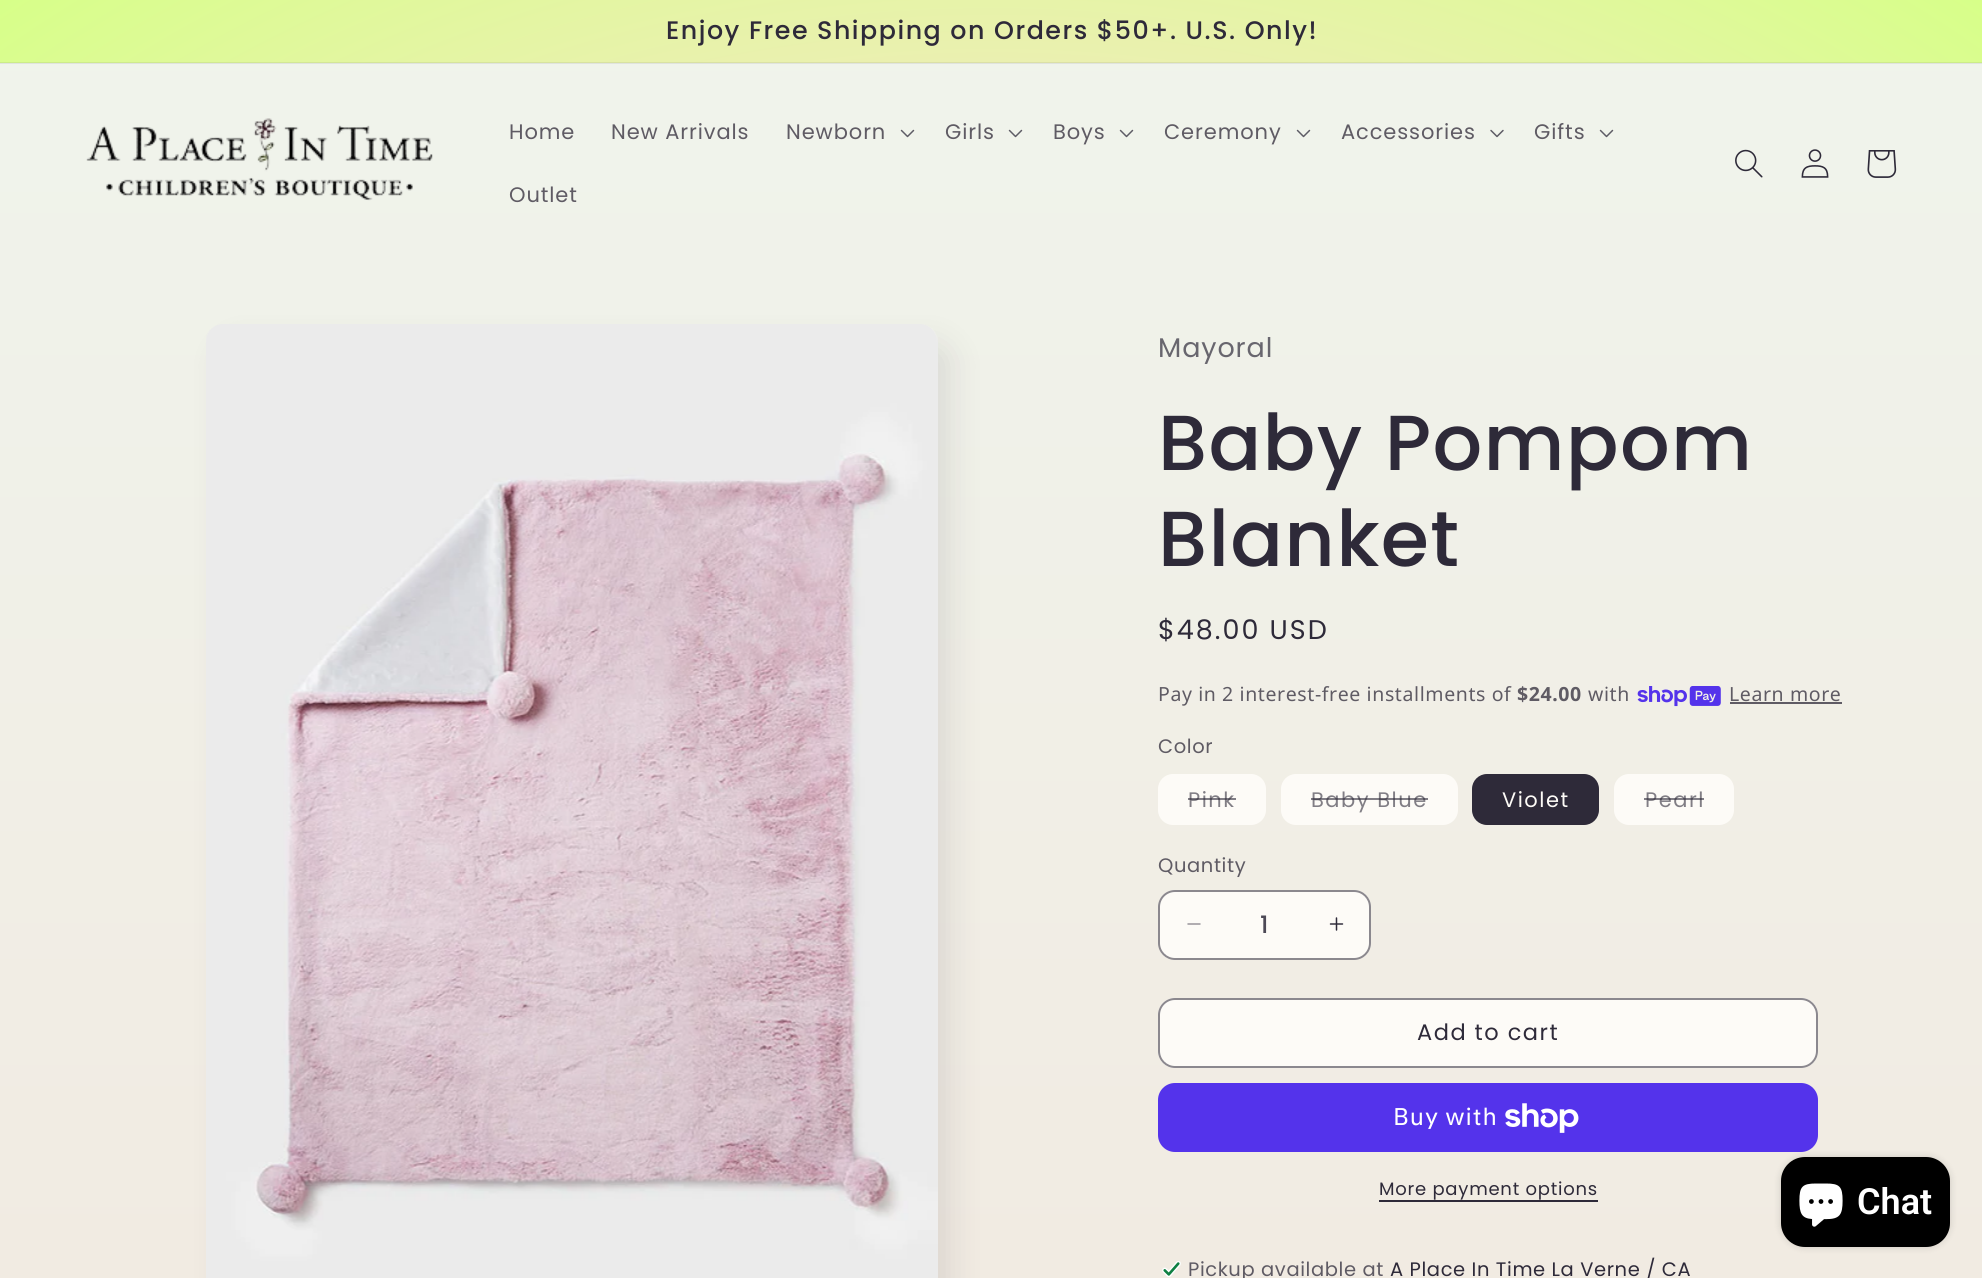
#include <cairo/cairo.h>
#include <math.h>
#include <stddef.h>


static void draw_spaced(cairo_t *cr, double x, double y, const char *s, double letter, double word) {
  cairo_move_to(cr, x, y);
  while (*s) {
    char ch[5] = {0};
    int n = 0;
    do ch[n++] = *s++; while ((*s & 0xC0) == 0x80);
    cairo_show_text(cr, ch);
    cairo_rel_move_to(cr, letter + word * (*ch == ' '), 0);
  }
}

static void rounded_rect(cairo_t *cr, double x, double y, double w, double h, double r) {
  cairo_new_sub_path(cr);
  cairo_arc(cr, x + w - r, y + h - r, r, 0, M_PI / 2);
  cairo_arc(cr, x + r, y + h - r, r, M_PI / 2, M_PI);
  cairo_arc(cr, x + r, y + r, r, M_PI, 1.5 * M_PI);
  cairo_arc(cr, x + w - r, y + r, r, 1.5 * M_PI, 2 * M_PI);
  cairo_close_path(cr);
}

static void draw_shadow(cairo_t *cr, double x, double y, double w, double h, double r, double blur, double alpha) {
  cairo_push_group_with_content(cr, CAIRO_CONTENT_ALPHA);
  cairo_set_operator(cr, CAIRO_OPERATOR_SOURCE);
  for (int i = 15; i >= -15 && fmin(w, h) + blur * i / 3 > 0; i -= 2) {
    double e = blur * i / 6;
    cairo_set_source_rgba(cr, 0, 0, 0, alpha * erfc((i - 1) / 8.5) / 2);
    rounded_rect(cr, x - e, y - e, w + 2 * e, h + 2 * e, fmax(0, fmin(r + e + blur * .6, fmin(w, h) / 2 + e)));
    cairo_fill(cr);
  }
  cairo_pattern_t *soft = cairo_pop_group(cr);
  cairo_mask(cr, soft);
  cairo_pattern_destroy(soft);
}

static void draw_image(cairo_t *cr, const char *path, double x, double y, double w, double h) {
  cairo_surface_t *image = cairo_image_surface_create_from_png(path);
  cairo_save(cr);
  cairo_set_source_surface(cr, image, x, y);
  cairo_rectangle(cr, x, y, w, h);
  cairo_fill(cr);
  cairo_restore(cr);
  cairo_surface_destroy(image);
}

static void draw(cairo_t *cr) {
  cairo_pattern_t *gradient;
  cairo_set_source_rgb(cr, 1, 1, 1);
  cairo_paint(cr);
  gradient = cairo_pattern_create_linear(992, 0, 992, 1278);
  cairo_pattern_add_color_stop_rgba(gradient, 0, 240 / 255.0, 244 / 255.0, 236 / 255.0, 1);
  cairo_pattern_add_color_stop_rgba(gradient, 1, 241 / 255.0, 235 / 255.0, 226 / 255.0, 1);
  cairo_set_source(cr, gradient);
  cairo_pattern_destroy(gradient);
  cairo_rectangle(cr, 0, 64, 1982, 1214);
  cairo_fill(cr);
  gradient = cairo_pattern_create_linear(992, 0, 992, 1278);
  cairo_pattern_add_color_stop_rgba(gradient, 0, 224 / 255.0, 228 / 255.0, 222 / 255.0, 1);
  cairo_pattern_add_color_stop_rgba(gradient, 1, 225 / 255.0, 220 / 255.0, 212 / 255.0, 1);
  cairo_set_source(cr, gradient);
  cairo_pattern_destroy(gradient);
  cairo_rectangle(cr, 0, 63, 1982, 1);
  cairo_fill(cr);
  gradient = cairo_pattern_create_radial(0, 0, 0, 0, 0, 1);
  cairo_pattern_set_matrix(gradient, &(cairo_matrix_t){1.0 / 1402, 0, 0, 1.0 / 904, -1.0 * 992 / 1402, -1.0 * 639 / 904});
  cairo_pattern_add_color_stop_rgba(gradient, 0, 1, 229 / 255.0, 229 / 255.0, 1);
  cairo_pattern_add_color_stop_rgba(gradient, 0.25, 1, 224 / 255.0, 218 / 255.0, 1);
  cairo_pattern_add_color_stop_rgba(gradient, 1, 215 / 255.0, 1, 137 / 255.0, 1);
  cairo_set_source(cr, gradient);
  cairo_pattern_destroy(gradient);
  cairo_rectangle(cr, 0, 0, 1982, 62);
  cairo_fill(cr);
  gradient = cairo_pattern_create_radial(0, 0, 0, 0, 0, 1);
  cairo_pattern_set_matrix(gradient, &(cairo_matrix_t){1.0 / 1402, 0, 0, 1.0 / 904, -1.0 * 992 / 1402, -1.0 * 639 / 904});
  cairo_pattern_add_color_stop_rgba(gradient, 0, 238 / 255.0, 214 / 255.0, 215 / 255.0, 1);
  cairo_pattern_add_color_stop_rgba(gradient, 0.25, 238 / 255.0, 209 / 255.0, 205 / 255.0, 1);
  cairo_pattern_add_color_stop_rgba(gradient, 1, 201 / 255.0, 238 / 255.0, 131 / 255.0, 1);
  cairo_set_source(cr, gradient);
  cairo_pattern_destroy(gradient);
  cairo_rectangle(cr, 0, 62, 1982, 1);
  cairo_fill(cr);
  draw_image(cr, "images/1.png", 86, 118, 347, 83);
  draw_image(cr, "images/2.png", 900, 129, 15, 9);
  draw_image(cr, "images/2.png", 1008, 129, 15, 9);
  draw_image(cr, "images/2.png", 1119, 129, 15, 9);
  draw_image(cr, "images/2.png", 1296, 129, 15, 9);
  draw_image(cr, "images/3.png", 1490, 129, 14, 9);
  draw_image(cr, "images/2.png", 1599, 129, 15, 9);
  draw_image(cr, "images/4.png", 1735, 149, 28, 29);
  draw_image(cr, "images/5.png", 1801, 149, 28, 29);
  draw_image(cr, "images/6.png", 1867, 150, 30, 28);
  cairo_set_source_rgb(cr, 46 / 255.0, 42 / 255.0, 57 / 255.0);
  draw_shadow(cr, 221, 342, 732, 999, 18, 15, 0.1);
  gradient = cairo_pattern_create_linear(992, 0, 992, 1278);
  cairo_pattern_add_color_stop_rgba(gradient, 0, 240 / 255.0, 244 / 255.0, 236 / 255.0, 1);
  cairo_pattern_add_color_stop_rgba(gradient, 1, 241 / 255.0, 235 / 255.0, 226 / 255.0, 1);
  cairo_set_source(cr, gradient);
  cairo_pattern_destroy(gradient);
  cairo_new_path(cr);
  cairo_move_to(cr, 224, 324);
  cairo_line_to(cr, 920, 324);
  cairo_curve_to(cr, 930, 324, 938, 332, 938, 342);
  cairo_line_to(cr, 938, 1278);
  cairo_line_to(cr, 206, 1278);
  cairo_line_to(cr, 206, 342);
  cairo_curve_to(cr, 206, 332, 214, 324, 224, 324);
  cairo_close_path(cr);
  cairo_fill(cr);
  draw_image(cr, "images/7.png", 206, 324, 732, 954);
  draw_image(cr, "images/8.png", 1637, 686, 84, 21);
  cairo_set_source_rgb(cr, 95 / 255.0, 91 / 255.0, 100 / 255.0);
  cairo_rectangle(cr, 1730, 702, 112, 2);
  cairo_fill(cr);
  cairo_set_source_rgb(cr, 253 / 255.0, 251 / 255.0, 247 / 255.0);
  rounded_rect(cr, 1158, 774, 108, 51, 15);
  cairo_fill(cr);
  rounded_rect(cr, 1281, 774, 177, 51, 15);
  cairo_fill(cr);
  cairo_set_source_rgb(cr, 46 / 255.0, 42 / 255.0, 57 / 255.0);
  rounded_rect(cr, 1472, 774, 127, 51, 15);
  cairo_fill(cr);
  cairo_set_source_rgb(cr, 253 / 255.0, 251 / 255.0, 247 / 255.0);
  rounded_rect(cr, 1614, 774, 120, 51, 15);
  cairo_fill(cr);
  rounded_rect(cr, 1158, 890, 213, 70, 17);
  cairo_fill(cr);
  draw_image(cr, "images/9.png", 1187, 923, 14, 2);
  draw_image(cr, "images/10.png", 1329, 917, 15, 14);
  rounded_rect(cr, 1159, 891, 211, 68, 16);
  cairo_set_source_rgba(cr, 46 / 255.0, 42 / 255.0, 57 / 255.0, 0.55);
  cairo_stroke(cr);
  cairo_set_source_rgb(cr, 253 / 255.0, 251 / 255.0, 247 / 255.0);
  rounded_rect(cr, 1158, 998, 660, 70, 17);
  cairo_fill(cr);
  rounded_rect(cr, 1159, 999, 658, 68, 16);
  cairo_stroke(cr);
  rounded_rect(cr, 1159, 999, 658, 68, 16);
  cairo_set_source_rgba(cr, 46 / 255.0, 42 / 255.0, 57 / 255.0, 0.55);
  cairo_stroke(cr);
  cairo_set_source_rgb(cr, 84 / 255.0, 51 / 255.0, 235 / 255.0);
  rounded_rect(cr, 1158, 1083, 660, 69, 17);
  cairo_fill(cr);
  draw_image(cr, "images/11.png", 1505, 1103, 74, 30);
  cairo_set_source_rgb(cr, 46 / 255.0, 42 / 255.0, 57 / 255.0);
  cairo_rectangle(cr, 1379, 1200, 219, 2);
  cairo_fill(cr);
  draw_image(cr, "images/12.png", 1162, 1261, 19, 16);
  cairo_set_source_rgb(cr, 0, 0, 0);
  draw_shadow(cr, 1781, 1157, 169, 90, 24, 4, 0.15);
  cairo_set_source_rgb(cr, 0, 0, 0);
  rounded_rect(cr, 1781, 1157, 169, 90, 24);
  cairo_fill(cr);
  draw_image(cr, "images/13.png", 1799, 1183, 44, 44);
  cairo_select_font_face(cr, "Poppins Medium", CAIRO_FONT_SLANT_NORMAL, CAIRO_FONT_WEIGHT_NORMAL);
  cairo_set_font_size(cr, 25.35);
  cairo_set_source_rgb(cr, 46 / 255.0, 42 / 255.0, 57 / 255.0);
  draw_spaced(cr, 666, 39, "Enjoy Free Shipping on Orders $50+. U.S. Only!", 1.5, 0);
  cairo_select_font_face(cr, "Poppins", CAIRO_FONT_SLANT_NORMAL, CAIRO_FONT_WEIGHT_NORMAL);
  cairo_set_font_size(cr, 21);
  cairo_set_source_rgb(cr, 95 / 255.0, 91 / 255.0, 100 / 255.0);
  draw_spaced(cr, 509, 139, "Home", 0.9, 0);
  draw_spaced(cr, 611, 139, "New Arrivals", 0.9, 0);
  draw_spaced(cr, 786, 139, "Newborn", 0.9, 0);
  draw_spaced(cr, 945, 139, "Girls", 0.9, 0);
  draw_spaced(cr, 1053, 139, "Boys", 0.9, 0);
  draw_spaced(cr, 1164, 139, "Ceremony", 0.9, 0);
  draw_spaced(cr, 1341, 139, "Accessories", 0.9, 0);
  draw_spaced(cr, 1534, 139, "Gifts", 0.9, 0);
  draw_spaced(cr, 509, 202, "Outlet", 0.9, 0);
  cairo_set_font_size(cr, 27);
  cairo_set_source_rgb(cr, 104 / 255.0, 102 / 255.0, 110 / 255.0);
  draw_spaced(cr, 1158, 357, "Mayoral", 0.9, 0);
  cairo_select_font_face(cr, "Poppins Medium", CAIRO_FONT_SLANT_NORMAL, CAIRO_FONT_WEIGHT_NORMAL);
  cairo_set_font_size(cr, 78);
  cairo_set_source_rgb(cr, 46 / 255.0, 42 / 255.0, 57 / 255.0);
  draw_spaced(cr, 1158, 470, "Baby Pompom", 1.25, 0);
  draw_spaced(cr, 1158, 566, "Blanket", 1.25, 0);
  cairo_select_font_face(cr, "Poppins", CAIRO_FONT_SLANT_NORMAL, CAIRO_FONT_WEIGHT_NORMAL);
  cairo_set_font_size(cr, 27);
  draw_spaced(cr, 1158, 639, "$48.00 USD", 2, 0);
  cairo_select_font_face(cr, "Noto Sans", CAIRO_FONT_SLANT_NORMAL, CAIRO_FONT_WEIGHT_NORMAL);
  cairo_set_font_size(cr, 19.5);
  cairo_set_source_rgb(cr, 95 / 255.0, 91 / 255.0, 100 / 255.0);
  draw_spaced(cr, 1158, 701, "Pay in 2 interest-free installments of", 0.6, 0);
  cairo_select_font_face(cr, "Noto Sans", CAIRO_FONT_SLANT_NORMAL, CAIRO_FONT_WEIGHT_BOLD);
  draw_spaced(cr, 1517, 701, "$24.00", 0.6, 0);
  cairo_select_font_face(cr, "Noto Sans", CAIRO_FONT_SLANT_NORMAL, CAIRO_FONT_WEIGHT_NORMAL);
  draw_spaced(cr, 1588, 701, "with", 0.6, 0);
  draw_spaced(cr, 1729, 701, "Learn more", 0.6, 0);
  cairo_select_font_face(cr, "Poppins", CAIRO_FONT_SLANT_NORMAL, CAIRO_FONT_WEIGHT_NORMAL);
  draw_spaced(cr, 1158, 753, "Color", 0.6, 0);
  cairo_set_font_size(cr, 21);
  cairo_set_source_rgb(cr, 129 / 255.0, 126 / 255.0, 133 / 255.0);
  draw_spaced(cr, 1188, 807, "Pink", 1.5, 0);
  cairo_set_source_rgba(cr, 46 / 255.0, 42 / 255.0, 57 / 255.0, 0.6);
  cairo_rectangle(cr, 1188, 798, 48, 2);
  cairo_fill(cr);
  cairo_set_source_rgb(cr, 129 / 255.0, 126 / 255.0, 133 / 255.0);
  draw_spaced(cr, 1311, 807, "Baby Blue", 1.5, 0);
  cairo_set_source_rgba(cr, 46 / 255.0, 42 / 255.0, 57 / 255.0, 0.6);
  cairo_rectangle(cr, 1311, 798, 117, 2);
  cairo_fill(cr);
  cairo_set_source_rgb(cr, 253 / 255.0, 251 / 255.0, 247 / 255.0);
  draw_spaced(cr, 1502, 807, "Violet", 1.5, 0);
  cairo_set_source_rgb(cr, 129 / 255.0, 126 / 255.0, 133 / 255.0);
  draw_spaced(cr, 1645, 807, "Pearl", 1.5, 0);
  cairo_set_source_rgba(cr, 46 / 255.0, 42 / 255.0, 57 / 255.0, 0.6);
  cairo_rectangle(cr, 1644, 798, 60, 2);
  cairo_fill(cr);
  cairo_set_font_size(cr, 19.5);
  cairo_set_source_rgb(cr, 95 / 255.0, 91 / 255.0, 100 / 255.0);
  draw_spaced(cr, 1158, 872, "Quantity", 0.6, 0);
  cairo_select_font_face(cr, "Poppins Medium", CAIRO_FONT_SLANT_NORMAL, CAIRO_FONT_WEIGHT_NORMAL);
  cairo_set_font_size(cr, 24);
  cairo_set_source_rgb(cr, 77 / 255.0, 73 / 255.0, 86 / 255.0);
  cairo_move_to(cr, 1260, 933);
  cairo_show_text(cr, "1");
  cairo_select_font_face(cr, "Poppins", CAIRO_FONT_SLANT_NORMAL, CAIRO_FONT_WEIGHT_NORMAL);
  cairo_set_font_size(cr, 22.5);
  cairo_set_source_rgb(cr, 46 / 255.0, 42 / 255.0, 57 / 255.0);
  draw_spaced(cr, 1417, 1040, "Add to cart", 1.5, 0);
  cairo_select_font_face(cr, "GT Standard", CAIRO_FONT_SLANT_NORMAL, CAIRO_FONT_WEIGHT_NORMAL);
  cairo_set_font_size(cr, 24);
  cairo_set_source_rgb(cr, 1, 1, 1);
  draw_spaced(cr, 1393, 1125, "Buy with", 0.9, 0);
  cairo_select_font_face(cr, "Poppins", CAIRO_FONT_SLANT_NORMAL, CAIRO_FONT_WEIGHT_NORMAL);
  cairo_set_font_size(cr, 18);
  cairo_set_source_rgb(cr, 46 / 255.0, 42 / 255.0, 57 / 255.0);
  draw_spaced(cr, 1379, 1195, "More payment options", 0.75, 0);
  cairo_set_font_size(cr, 19.5);
  cairo_set_source_rgb(cr, 95 / 255.0, 91 / 255.0, 100 / 255.0);
  draw_spaced(cr, 1188, 1276, "Pickup available at", 0.6, 0);
  cairo_set_source_rgb(cr, 46 / 255.0, 42 / 255.0, 57 / 255.0);
  draw_spaced(cr, 1390, 1276, "A Place In Time La Verne / CA", 0.6, 0);
  cairo_select_font_face(cr, "Roboto SemiBold", CAIRO_FONT_SLANT_NORMAL, CAIRO_FONT_WEIGHT_NORMAL);
  cairo_set_font_size(cr, 36);
  cairo_set_source_rgb(cr, 1, 1, 1);
  cairo_move_to(cr, 1857, 1214);
  cairo_show_text(cr, "Chat");
}

int main(void) {
  cairo_surface_t *surface = cairo_image_surface_create(CAIRO_FORMAT_RGB24, 1982, 1278);
  cairo_t *cr = cairo_create(surface);
  cairo_font_options_t *options = cairo_font_options_create();
  cairo_font_options_set_hint_metrics(options, CAIRO_HINT_METRICS_OFF);
  cairo_font_options_set_hint_style(options, CAIRO_HINT_STYLE_NONE);
  cairo_set_font_options(cr, options);
  cairo_set_miter_limit(cr, 4);
  draw(cr);
  cairo_surface_write_to_png(surface, "out.png");
  cairo_font_options_destroy(options);
  cairo_destroy(cr);
  cairo_surface_destroy(surface);
  return 0;
}
